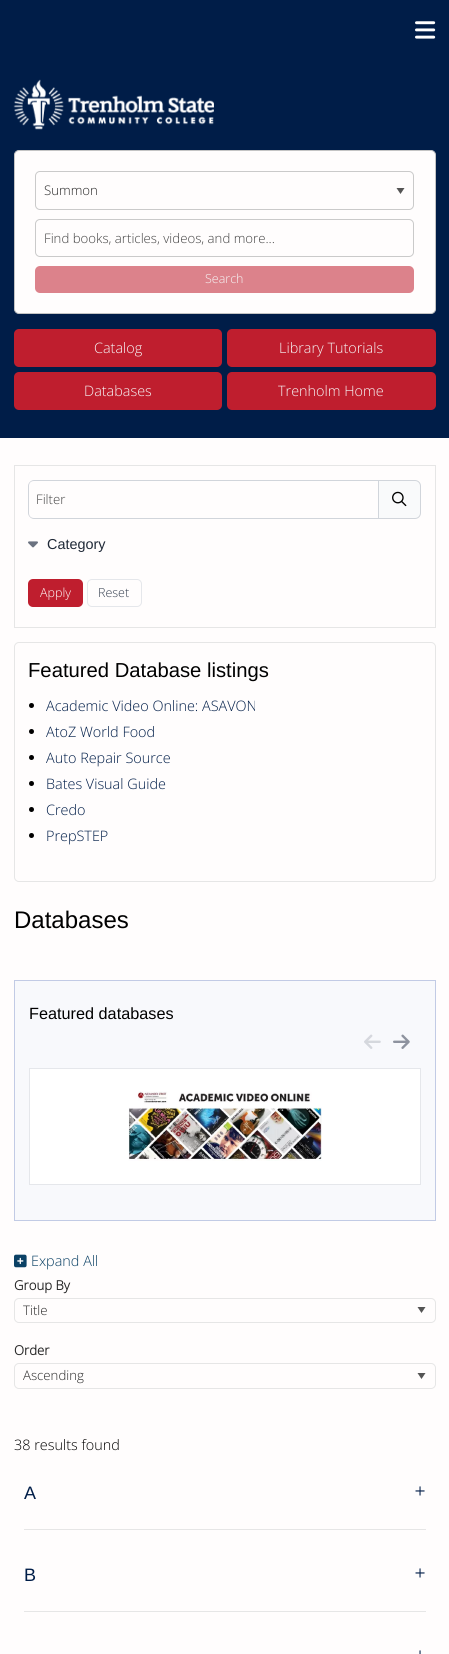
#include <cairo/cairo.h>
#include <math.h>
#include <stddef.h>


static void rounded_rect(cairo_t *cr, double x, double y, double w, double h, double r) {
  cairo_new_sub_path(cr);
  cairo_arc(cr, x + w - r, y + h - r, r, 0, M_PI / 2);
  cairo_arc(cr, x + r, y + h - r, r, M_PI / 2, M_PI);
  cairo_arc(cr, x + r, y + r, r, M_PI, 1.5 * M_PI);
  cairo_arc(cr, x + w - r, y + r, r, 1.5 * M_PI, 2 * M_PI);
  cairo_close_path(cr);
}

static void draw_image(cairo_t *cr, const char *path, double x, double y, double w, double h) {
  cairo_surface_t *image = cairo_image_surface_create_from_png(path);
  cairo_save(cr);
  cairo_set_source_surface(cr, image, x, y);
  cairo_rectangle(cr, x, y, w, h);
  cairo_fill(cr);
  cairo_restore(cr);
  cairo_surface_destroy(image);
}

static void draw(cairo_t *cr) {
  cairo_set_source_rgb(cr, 0, 29 / 255.0, 72 / 255.0);
  cairo_paint(cr);
  draw_image(cr, "images/1.png", 415, 21, 21, 18);
  draw_image(cr, "images/2.png", 13, 79, 201, 51);
  cairo_set_source_rgb(cr, 1, 253 / 255.0, 253 / 255.0);
  rounded_rect(cr, 14.5, 150.5, 421, 163, 4.5);
  cairo_fill_preserve(cr);
  cairo_set_source_rgb(cr, 196 / 255.0, 196 / 255.0, 196 / 255.0);
  cairo_set_line_width(cr, 1);
  cairo_stroke(cr);
  cairo_set_source_rgb(cr, 84 / 255.0, 84 / 255.0, 84 / 255.0);
  cairo_new_path(cr);
  cairo_move_to(cr, 396.5, 188);
  cairo_line_to(cr, 404.5, 188);
  cairo_line_to(cr, 400.5, 194);
  cairo_close_path(cr);
  cairo_fill(cr);
  rounded_rect(cr, 35.5, 171.5, 378, 38, 4.5);
  cairo_set_source_rgb(cr, 202 / 255.0, 202 / 255.0, 202 / 255.0);
  cairo_stroke(cr);
  rounded_rect(cr, 35.5, 219.5, 378, 37, 4.5);
  cairo_stroke(cr);
  cairo_set_source_rgb(cr, 220 / 255.0, 130 / 255.0, 139 / 255.0);
  rounded_rect(cr, 35, 266, 379, 27, 5);
  cairo_fill(cr);
  cairo_set_source_rgb(cr, 191 / 255.0, 30 / 255.0, 46 / 255.0);
  rounded_rect(cr, 14, 329, 208, 38, 5);
  cairo_fill(cr);
  rounded_rect(cr, 227, 329, 209, 38, 5);
  cairo_fill(cr);
  rounded_rect(cr, 14, 372, 208, 38, 5);
  cairo_fill(cr);
  rounded_rect(cr, 227, 372, 209, 38, 5);
  cairo_fill(cr);
  cairo_set_source_rgb(cr, 1, 253 / 255.0, 253 / 255.0);
  cairo_rectangle(cr, 0, 438, 449, 1216);
  cairo_fill(cr);
  cairo_rectangle(cr, 14.5, 465.5, 421, 162);
  cairo_set_source_rgb(cr, 230 / 255.0, 230 / 255.0, 230 / 255.0);
  cairo_stroke(cr);
  cairo_set_source_rgb(cr, 209 / 255.0, 213 / 255.0, 219 / 255.0);
  cairo_set_fill_rule(cr, CAIRO_FILL_RULE_EVEN_ODD);
  cairo_new_path(cr);
  cairo_move_to(cr, 34, 480);
  cairo_line_to(cr, 378, 480);
  cairo_line_to(cr, 378, 519);
  cairo_line_to(cr, 34, 519);
  cairo_curve_to(cr, 31, 519, 28, 516, 28, 513);
  cairo_line_to(cr, 28, 486);
  cairo_curve_to(cr, 28, 483, 31, 480, 34, 480);
  cairo_close_path(cr);
  cairo_move_to(cr, 34, 481);
  cairo_line_to(cr, 378, 481);
  cairo_line_to(cr, 378, 518);
  cairo_line_to(cr, 34, 518);
  cairo_curve_to(cr, 31, 518, 29, 516, 29, 513);
  cairo_line_to(cr, 29, 486);
  cairo_curve_to(cr, 29, 483, 31, 481, 34, 481);
  cairo_close_path(cr);
  cairo_fill(cr);
  cairo_set_source_rgb(cr, 249 / 255.0, 250 / 255.0, 251 / 255.0);
  cairo_new_path(cr);
  cairo_move_to(cr, 378.5, 480.5);
  cairo_line_to(cr, 415, 480.5);
  cairo_curve_to(cr, 418, 480.5, 420.5, 483, 420.5, 486);
  cairo_line_to(cr, 420.5, 513);
  cairo_curve_to(cr, 420.5, 516, 418, 518.5, 415, 518.5);
  cairo_line_to(cr, 378.5, 518.5);
  cairo_close_path(cr);
  cairo_fill_preserve(cr);
  cairo_set_source_rgb(cr, 209 / 255.0, 213 / 255.0, 219 / 255.0);
  cairo_stroke(cr);
  draw_image(cr, "images/3.png", 392, 491, 15, 16);
  draw_image(cr, "images/4.png", 28, 541, 10, 7);
  cairo_set_source_rgb(cr, 191 / 255.0, 30 / 255.0, 46 / 255.0);
  rounded_rect(cr, 28, 579, 55, 28, 5);
  cairo_fill(cr);
  rounded_rect(cr, 87.5, 579.5, 54, 27, 4.5);
  cairo_set_source_rgb(cr, 229 / 255.0, 231 / 255.0, 235 / 255.0);
  cairo_stroke(cr);
  rounded_rect(cr, 14.5, 642.5, 421, 239, 4.5);
  cairo_set_source_rgb(cr, 230 / 255.0, 230 / 255.0, 230 / 255.0);
  cairo_stroke(cr);
  cairo_set_source_rgb(cr, 0, 0, 0);
  cairo_arc(cr, 31.5, 705.5, 2.5, 0, 2 * M_PI);
  cairo_fill(cr);
  cairo_arc(cr, 31.5, 731.5, 2.5, 0, 2 * M_PI);
  cairo_fill(cr);
  cairo_arc(cr, 31.5, 757.5, 2.5, 0, 2 * M_PI);
  cairo_fill(cr);
  cairo_arc(cr, 31.5, 783.5, 2.5, 0, 2 * M_PI);
  cairo_fill(cr);
  cairo_arc(cr, 31.5, 809.5, 2.5, 0, 2 * M_PI);
  cairo_fill(cr);
  cairo_arc(cr, 31.5, 835.5, 2.5, 0, 2 * M_PI);
  cairo_fill(cr);
  cairo_set_source_rgb(cr, 248 / 255.0, 249 / 255.0, 252 / 255.0);
  cairo_rectangle(cr, 14.5, 980.5, 421, 240);
  cairo_fill_preserve(cr);
  cairo_set_source_rgb(cr, 194 / 255.0, 203 / 255.0, 229 / 255.0);
  cairo_stroke(cr);
  draw_image(cr, "images/5.png", 364, 1034, 17, 15);
  draw_image(cr, "images/6.png", 393, 1034, 17, 15);
  cairo_set_source_rgb(cr, 1, 1, 1);
  cairo_rectangle(cr, 29.5, 1068.5, 391, 116);
  cairo_fill_preserve(cr);
  cairo_set_source_rgb(cr, 229 / 255.0, 231 / 255.0, 235 / 255.0);
  cairo_stroke(cr);
  draw_image(cr, "images/7.png", 128, 1091, 194, 70);
  draw_image(cr, "images/8.png", 14, 1254, 13, 14);
  cairo_set_source_rgb(cr, 84 / 255.0, 84 / 255.0, 84 / 255.0);
  cairo_set_fill_rule(cr, CAIRO_FILL_RULE_WINDING);
  cairo_new_path(cr);
  cairo_move_to(cr, 417.5, 1307);
  cairo_line_to(cr, 425.5, 1307);
  cairo_line_to(cr, 421.5, 1313);
  cairo_close_path(cr);
  cairo_fill(cr);
  rounded_rect(cr, 14.5, 1298.5, 421, 24, 4.5);
  cairo_set_source_rgb(cr, 230 / 255.0, 230 / 255.0, 230 / 255.0);
  cairo_stroke(cr);
  cairo_set_source_rgb(cr, 84 / 255.0, 84 / 255.0, 84 / 255.0);
  cairo_new_path(cr);
  cairo_move_to(cr, 417.5, 1373);
  cairo_line_to(cr, 425.5, 1373);
  cairo_line_to(cr, 421.5, 1379);
  cairo_close_path(cr);
  cairo_fill(cr);
  rounded_rect(cr, 14.5, 1363.5, 421, 25, 4.5);
  cairo_set_source_rgb(cr, 230 / 255.0, 230 / 255.0, 230 / 255.0);
  cairo_stroke(cr);
  cairo_rectangle(cr, 24, 1529, 402, 1);
  cairo_fill(cr);
  draw_image(cr, "images/9.png", 415, 1486, 10, 10);
  cairo_rectangle(cr, 24, 1611, 402, 1);
  cairo_fill(cr);
  draw_image(cr, "images/9.png", 415, 1568, 10, 10);
  draw_image(cr, "images/10.png", 419, 1650, 2, 4);
  cairo_select_font_face(cr, "Open Sans Light", CAIRO_FONT_SLANT_NORMAL, CAIRO_FONT_WEIGHT_NORMAL);
  cairo_set_font_size(cr, 13.2);
  cairo_set_source_rgb(cr, 40 / 255.0, 40 / 255.0, 40 / 255.0);
  cairo_move_to(cr, 44, 195);
  cairo_show_text(cr, "Summon");
  cairo_set_source_rgb(cr, 68 / 255.0, 68 / 255.0, 68 / 255.0);
  cairo_move_to(cr, 44, 243);
  cairo_show_text(cr, "Find books, articles, videos, and more...");
  cairo_set_font_size(cr, 12.5);
  cairo_set_source_rgb(cr, 246 / 255.0, 246 / 255.0, 246 / 255.0);
  cairo_move_to(cr, 205, 283);
  cairo_show_text(cr, "Search");
  cairo_set_font_size(cr, 14.4);
  cairo_move_to(cr, 94, 353);
  cairo_show_text(cr, "Catalog");
  cairo_move_to(cr, 279, 353);
  cairo_show_text(cr, "Library Tutorials");
  cairo_move_to(cr, 84, 396);
  cairo_show_text(cr, "Databases");
  cairo_move_to(cr, 278, 396);
  cairo_show_text(cr, "Trenholm Home");
  cairo_set_font_size(cr, 13.2);
  cairo_set_source_rgb(cr, 68 / 255.0, 68 / 255.0, 68 / 255.0);
  cairo_move_to(cr, 36, 504);
  cairo_show_text(cr, "Filter");
  cairo_select_font_face(cr, "Liberation Sans", CAIRO_FONT_SLANT_NORMAL, CAIRO_FONT_WEIGHT_NORMAL);
  cairo_set_font_size(cr, 14.4);
  cairo_set_source_rgb(cr, 31 / 255.0, 41 / 255.0, 55 / 255.0);
  cairo_move_to(cr, 47, 549);
  cairo_show_text(cr, "Category");
  cairo_select_font_face(cr, "Open Sans Light", CAIRO_FONT_SLANT_NORMAL, CAIRO_FONT_WEIGHT_NORMAL);
  cairo_set_font_size(cr, 12.5);
  cairo_set_source_rgb(cr, 1, 253 / 255.0, 253 / 255.0);
  cairo_move_to(cr, 40, 597);
  cairo_show_text(cr, "Apply");
  cairo_set_source_rgb(cr, 55 / 255.0, 65 / 255.0, 81 / 255.0);
  cairo_move_to(cr, 98, 597);
  cairo_show_text(cr, "Reset");
  cairo_select_font_face(cr, "Liberation Sans", CAIRO_FONT_SLANT_NORMAL, CAIRO_FONT_WEIGHT_NORMAL);
  cairo_set_font_size(cr, 20.25);
  cairo_set_source_rgb(cr, 0, 0, 0);
  cairo_move_to(cr, 28, 677);
  cairo_show_text(cr, "Featured Database listings");
  cairo_select_font_face(cr, "Open Sans Light", CAIRO_FONT_SLANT_NORMAL, CAIRO_FONT_WEIGHT_NORMAL);
  cairo_set_font_size(cr, 14.4);
  cairo_set_source_rgb(cr, 0, 29 / 255.0, 72 / 255.0);
  cairo_move_to(cr, 46, 711);
  cairo_show_text(cr, "Academic Video Online: ASAVON");
  cairo_move_to(cr, 46, 737);
  cairo_show_text(cr, "AtoZ World Food");
  cairo_move_to(cr, 46, 763);
  cairo_show_text(cr, "Auto Repair Source");
  cairo_move_to(cr, 46, 789);
  cairo_show_text(cr, "Bates Visual Guide");
  cairo_move_to(cr, 46, 815);
  cairo_show_text(cr, "Credo");
  cairo_move_to(cr, 46, 841);
  cairo_show_text(cr, "PrepSTEP");
  cairo_select_font_face(cr, "Liberation Sans", CAIRO_FONT_SLANT_NORMAL, CAIRO_FONT_WEIGHT_NORMAL);
  cairo_set_font_size(cr, 24);
  cairo_set_source_rgb(cr, 0, 0, 0);
  cairo_move_to(cr, 14, 928);
  cairo_show_text(cr, "Databases");
  cairo_set_font_size(cr, 16.25);
  cairo_move_to(cr, 29, 1019);
  cairo_show_text(cr, "Featured databases");
  cairo_select_font_face(cr, "Open Sans Light", CAIRO_FONT_SLANT_NORMAL, CAIRO_FONT_WEIGHT_NORMAL);
  cairo_set_font_size(cr, 14.4);
  cairo_set_source_rgb(cr, 11 / 255.0, 65 / 255.0, 101 / 255.0);
  cairo_move_to(cr, 31, 1266);
  cairo_show_text(cr, "Expand All");
  cairo_select_font_face(cr, "Open Sans", CAIRO_FONT_SLANT_NORMAL, CAIRO_FONT_WEIGHT_BOLD);
  cairo_set_font_size(cr, 13.2);
  cairo_set_source_rgb(cr, 40 / 255.0, 40 / 255.0, 40 / 255.0);
  cairo_move_to(cr, 14, 1290);
  cairo_show_text(cr, "Group By");
  cairo_select_font_face(cr, "Open Sans Light", CAIRO_FONT_SLANT_NORMAL, CAIRO_FONT_WEIGHT_NORMAL);
  cairo_move_to(cr, 23, 1315);
  cairo_show_text(cr, "Title");
  cairo_select_font_face(cr, "Open Sans", CAIRO_FONT_SLANT_NORMAL, CAIRO_FONT_WEIGHT_BOLD);
  cairo_move_to(cr, 14, 1355);
  cairo_show_text(cr, "Order");
  cairo_select_font_face(cr, "Open Sans Light", CAIRO_FONT_SLANT_NORMAL, CAIRO_FONT_WEIGHT_NORMAL);
  cairo_move_to(cr, 23, 1380);
  cairo_show_text(cr, "Ascending");
  cairo_set_font_size(cr, 14.4);
  cairo_set_source_rgb(cr, 0, 0, 0);
  cairo_move_to(cr, 14, 1450);
  cairo_show_text(cr, "38 results found");
  cairo_select_font_face(cr, "Liberation Sans", CAIRO_FONT_SLANT_NORMAL, CAIRO_FONT_WEIGHT_NORMAL);
  cairo_set_font_size(cr, 18);
  cairo_set_source_rgb(cr, 0, 29 / 255.0, 72 / 255.0);
  cairo_move_to(cr, 24, 1499);
  cairo_show_text(cr, "A");
  cairo_move_to(cr, 24, 1581);
  cairo_show_text(cr, "B");
}

int main(void) {
  cairo_surface_t *surface = cairo_image_surface_create(CAIRO_FORMAT_RGB24, 449, 1654);
  cairo_t *cr = cairo_create(surface);
  cairo_font_options_t *options = cairo_font_options_create();
  cairo_font_options_set_hint_metrics(options, CAIRO_HINT_METRICS_OFF);
  cairo_font_options_set_hint_style(options, CAIRO_HINT_STYLE_NONE);
  cairo_set_font_options(cr, options);
  cairo_set_miter_limit(cr, 4);
  draw(cr);
  cairo_surface_write_to_png(surface, "out.png");
  cairo_font_options_destroy(options);
  cairo_destroy(cr);
  cairo_surface_destroy(surface);
  return 0;
}
